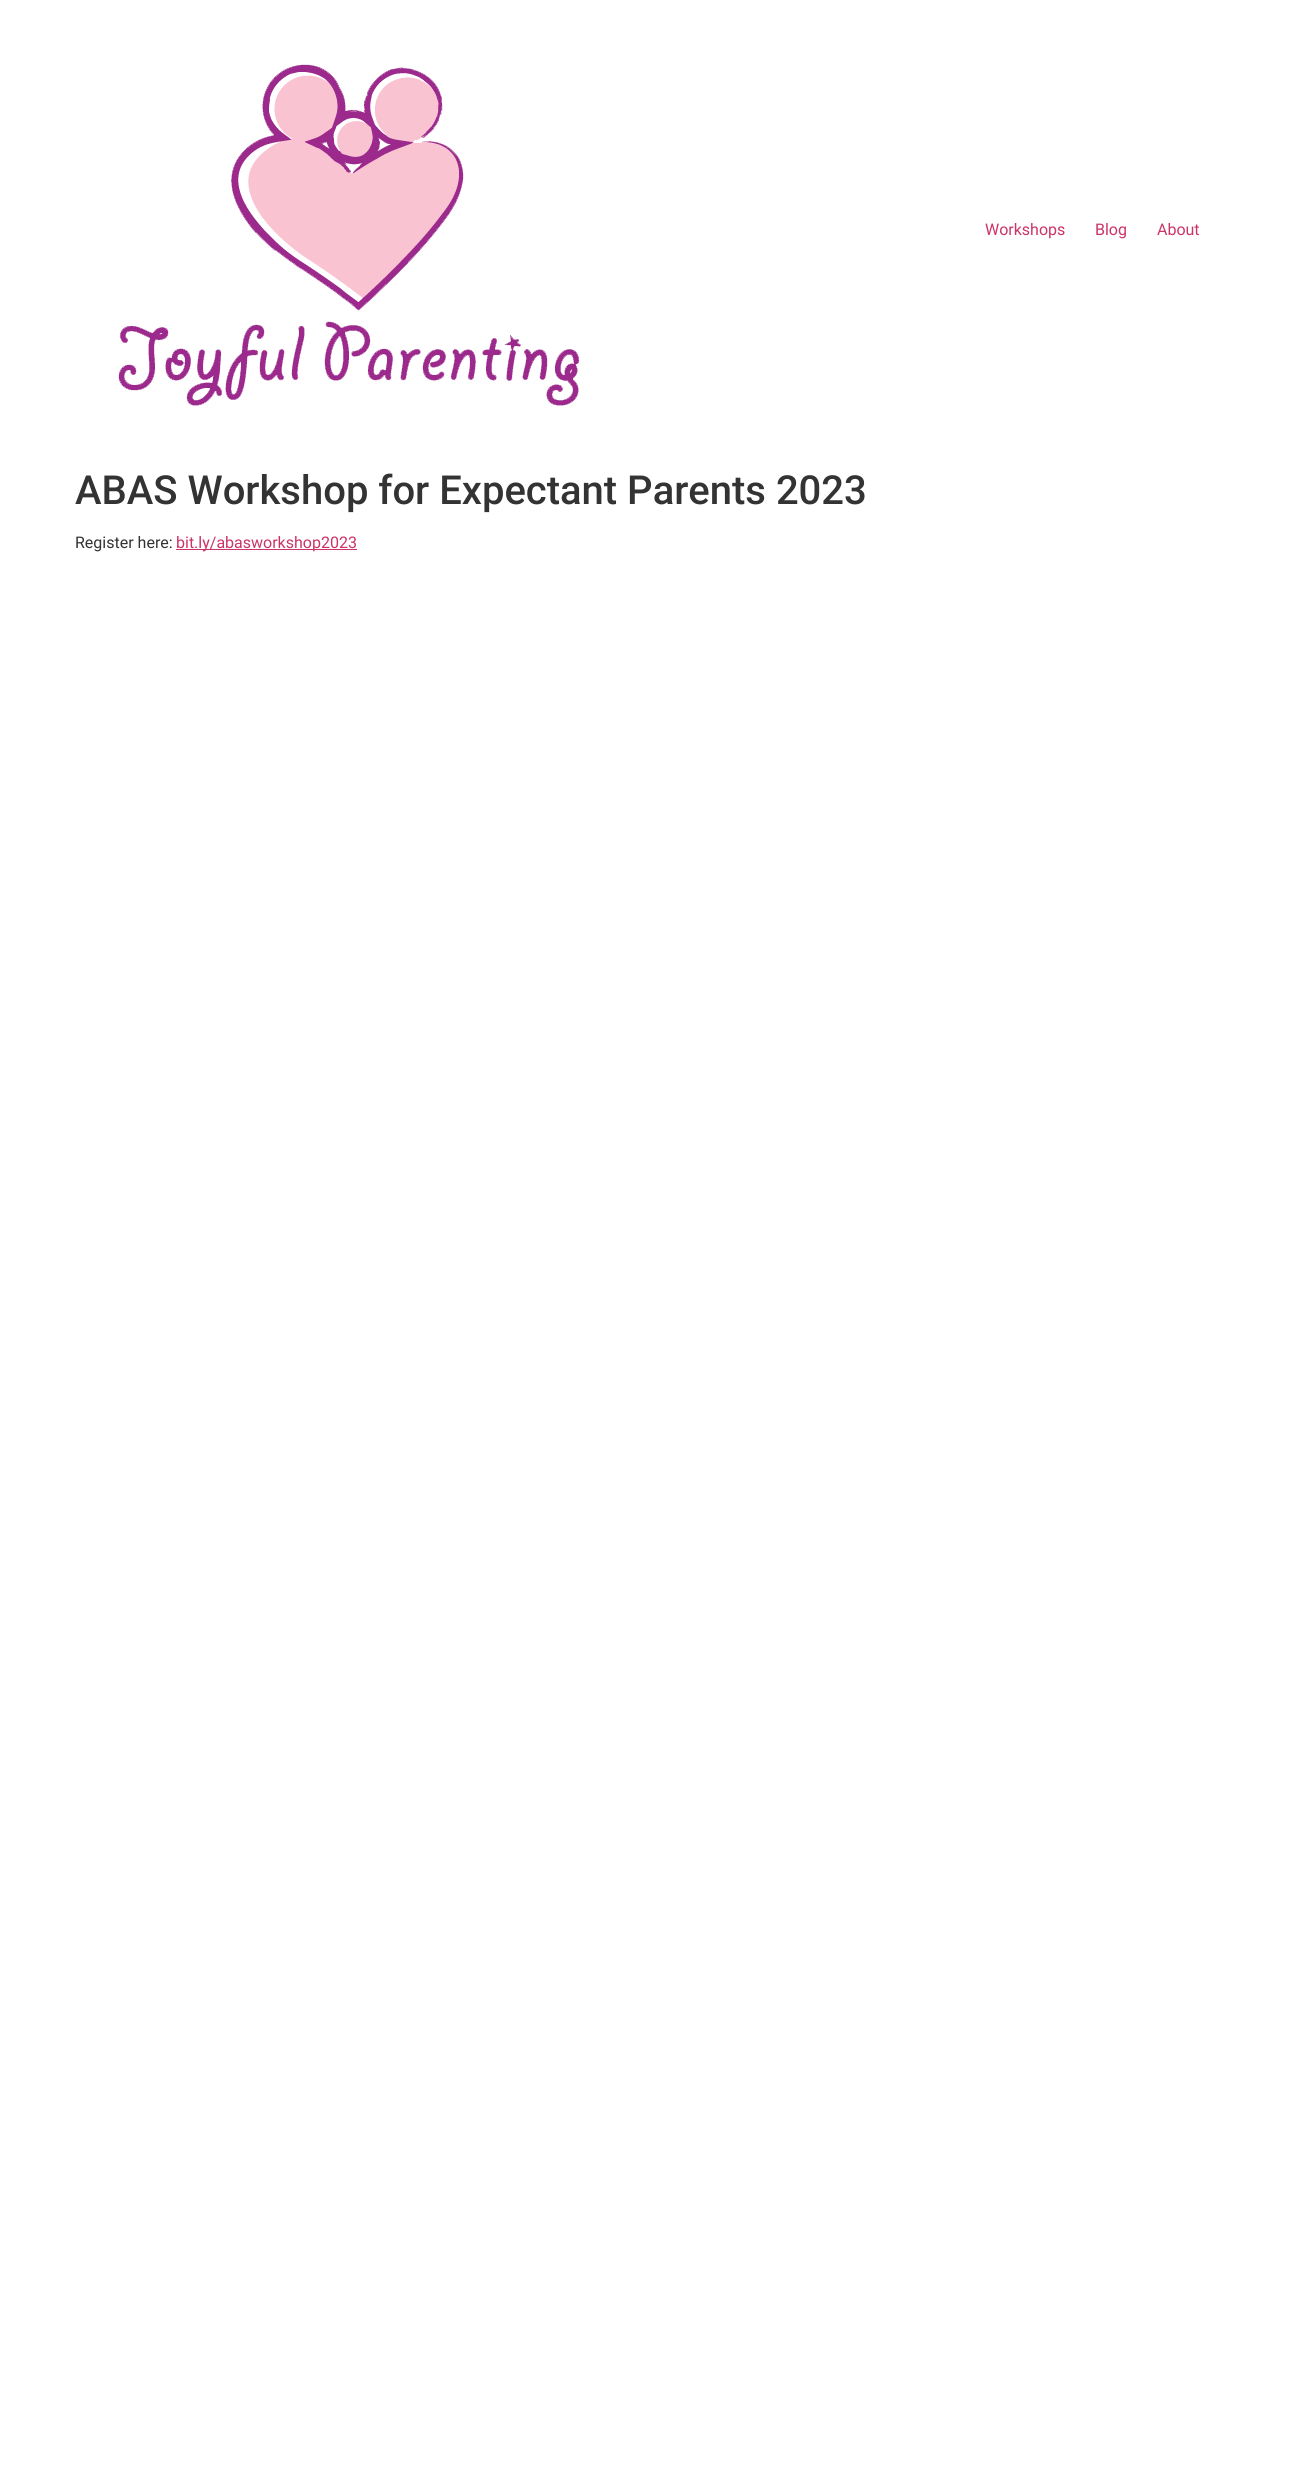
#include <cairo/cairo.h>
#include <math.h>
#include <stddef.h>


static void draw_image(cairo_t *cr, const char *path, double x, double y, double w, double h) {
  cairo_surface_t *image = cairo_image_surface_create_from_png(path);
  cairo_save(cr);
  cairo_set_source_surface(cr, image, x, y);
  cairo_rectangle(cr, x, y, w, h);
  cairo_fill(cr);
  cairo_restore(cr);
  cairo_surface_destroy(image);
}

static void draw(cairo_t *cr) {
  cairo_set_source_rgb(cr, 1, 1, 1);
  cairo_paint(cr);
  draw_image(cr, "images/1.png", 118, 53, 462, 353);
  cairo_set_source_rgb(cr, 204 / 255.0, 51 / 255.0, 102 / 255.0);
  cairo_rectangle(cr, 176, 549, 181, 1);
  cairo_fill(cr);
  cairo_select_font_face(cr, "Roboto", CAIRO_FONT_SLANT_NORMAL, CAIRO_FONT_WEIGHT_NORMAL);
  cairo_set_font_size(cr, 16);
  cairo_move_to(cr, 985, 235);
  cairo_show_text(cr, "Workshops");
  cairo_move_to(cr, 1095, 235);
  cairo_show_text(cr, "Blog");
  cairo_move_to(cr, 1157, 235);
  cairo_show_text(cr, "About");
  cairo_select_font_face(cr, "Roboto Medium", CAIRO_FONT_SLANT_NORMAL, CAIRO_FONT_WEIGHT_NORMAL);
  cairo_set_font_size(cr, 40);
  cairo_set_source_rgb(cr, 51 / 255.0, 51 / 255.0, 51 / 255.0);
  cairo_move_to(cr, 75, 504);
  cairo_show_text(cr, "ABAS Workshop for Expectant Parents 2023");
  cairo_select_font_face(cr, "Roboto", CAIRO_FONT_SLANT_NORMAL, CAIRO_FONT_WEIGHT_NORMAL);
  cairo_set_font_size(cr, 16);
  cairo_move_to(cr, 75, 548);
  cairo_show_text(cr, "Register here:");
  cairo_set_source_rgb(cr, 204 / 255.0, 51 / 255.0, 102 / 255.0);
  cairo_move_to(cr, 176, 548);
  cairo_show_text(cr, "bit.ly/abasworkshop2023");
}

int main(void) {
  cairo_surface_t *surface = cairo_image_surface_create(CAIRO_FORMAT_RGB24, 1289, 2490);
  cairo_t *cr = cairo_create(surface);
  cairo_font_options_t *options = cairo_font_options_create();
  cairo_font_options_set_hint_metrics(options, CAIRO_HINT_METRICS_OFF);
  cairo_font_options_set_hint_style(options, CAIRO_HINT_STYLE_NONE);
  cairo_set_font_options(cr, options);
  cairo_set_miter_limit(cr, 4);
  draw(cr);
  cairo_surface_write_to_png(surface, "out.png");
  cairo_font_options_destroy(options);
  cairo_destroy(cr);
  cairo_surface_destroy(surface);
  return 0;
}
